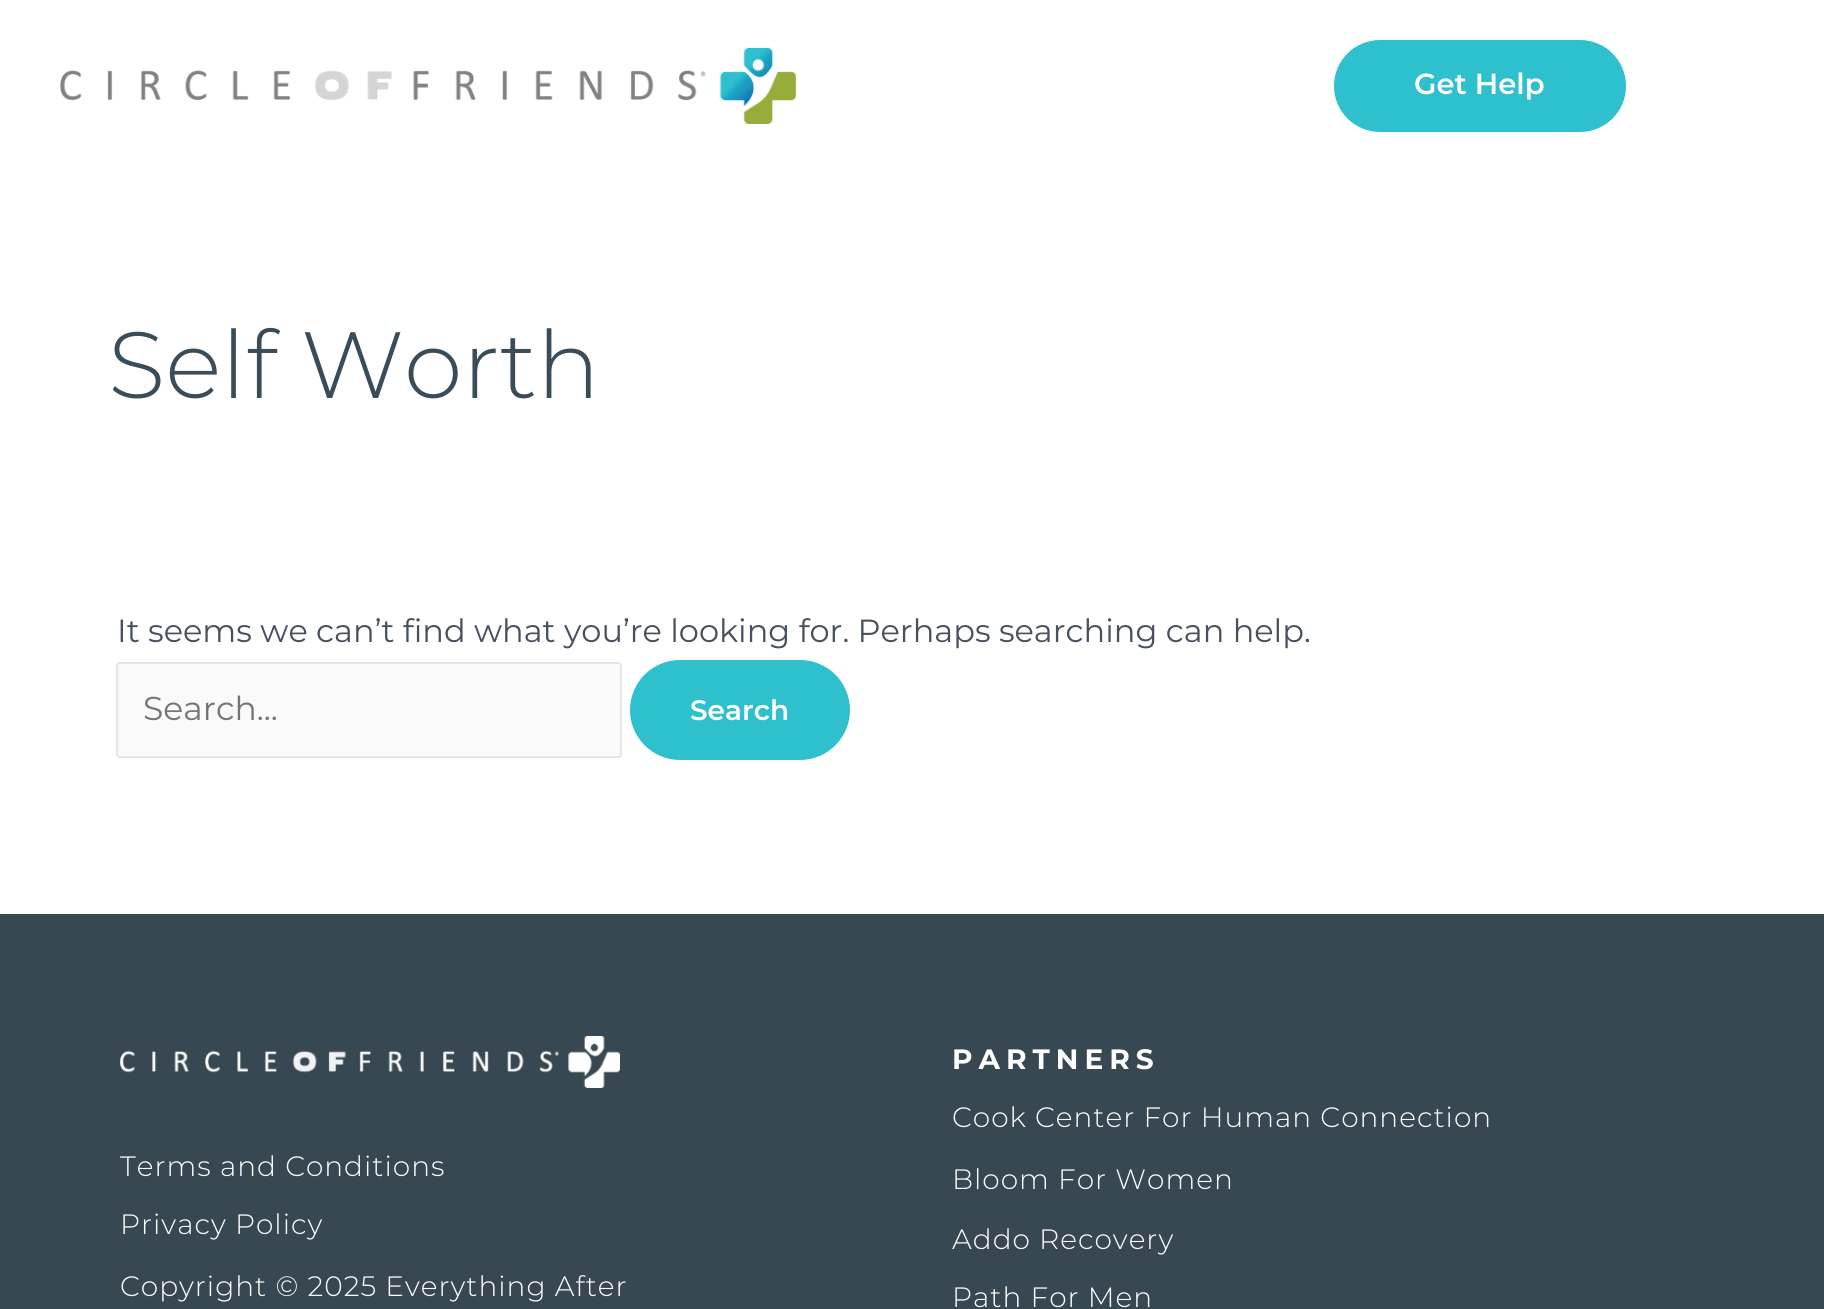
#include <cairo/cairo.h>
#include <math.h>
#include <stddef.h>


static void draw_spaced(cairo_t *cr, double x, double y, const char *s, double letter, double word) {
  cairo_move_to(cr, x, y);
  while (*s) {
    char ch[5] = {0};
    int n = 0;
    do ch[n++] = *s++; while ((*s & 0xC0) == 0x80);
    cairo_show_text(cr, ch);
    cairo_rel_move_to(cr, letter + word * (*ch == ' '), 0);
  }
}

static void rounded_rect(cairo_t *cr, double x, double y, double w, double h, double r) {
  cairo_new_sub_path(cr);
  cairo_arc(cr, x + w - r, y + h - r, r, 0, M_PI / 2);
  cairo_arc(cr, x + r, y + h - r, r, M_PI / 2, M_PI);
  cairo_arc(cr, x + r, y + r, r, M_PI, 1.5 * M_PI);
  cairo_arc(cr, x + w - r, y + r, r, 1.5 * M_PI, 2 * M_PI);
  cairo_close_path(cr);
}

static void draw_image(cairo_t *cr, const char *path, double x, double y, double w, double h) {
  cairo_surface_t *image = cairo_image_surface_create_from_png(path);
  cairo_save(cr);
  cairo_set_source_surface(cr, image, x, y);
  cairo_rectangle(cr, x, y, w, h);
  cairo_fill(cr);
  cairo_restore(cr);
  cairo_surface_destroy(image);
}

static void draw(cairo_t *cr) {
  cairo_set_source_rgb(cr, 1, 1, 1);
  cairo_paint(cr);
  draw_image(cr, "images/1.png", 60, 48, 736, 76);
  cairo_set_source_rgb(cr, 46 / 255.0, 192 / 255.0, 205 / 255.0);
  rounded_rect(cr, 1334, 40, 292, 92, 46);
  cairo_fill(cr);
  cairo_set_source_rgb(cr, 250 / 255.0, 250 / 255.0, 250 / 255.0);
  rounded_rect(cr, 117, 663, 504, 94, 3);
  cairo_fill_preserve(cr);
  cairo_set_source_rgb(cr, 229 / 255.0, 229 / 255.0, 229 / 255.0);
  cairo_stroke(cr);
  cairo_set_source_rgb(cr, 46 / 255.0, 192 / 255.0, 205 / 255.0);
  rounded_rect(cr, 630, 660, 220, 100, 50);
  cairo_fill(cr);
  cairo_set_source_rgb(cr, 56 / 255.0, 72 / 255.0, 82 / 255.0);
  cairo_rectangle(cr, 0, 914, 1824, 395);
  cairo_fill(cr);
  draw_image(cr, "images/2.png", 120, 1036, 500, 52);
  cairo_select_font_face(cr, "Montserrat SemiBold", CAIRO_FONT_SLANT_NORMAL, CAIRO_FONT_WEIGHT_NORMAL);
  cairo_set_font_size(cr, 29);
  cairo_set_source_rgb(cr, 1, 1, 1);
  cairo_move_to(cr, 1414, 94);
  cairo_show_text(cr, "Get Help");
  cairo_select_font_face(cr, "Montserrat Light", CAIRO_FONT_SLANT_NORMAL, CAIRO_FONT_WEIGHT_NORMAL);
  cairo_set_font_size(cr, 94);
  cairo_set_source_rgb(cr, 58 / 255.0, 76 / 255.0, 88 / 255.0);
  cairo_move_to(cr, 108, 398);
  cairo_show_text(cr, "Self Worth");
  cairo_select_font_face(cr, "Montserrat", CAIRO_FONT_SLANT_NORMAL, CAIRO_FONT_WEIGHT_NORMAL);
  cairo_set_font_size(cr, 32);
  cairo_set_source_rgb(cr, 71 / 255.0, 80 / 255.0, 95 / 255.0);
  cairo_move_to(cr, 117, 642);
  cairo_show_text(cr, "It seems we can’t find what you’re looking for. Perhaps searching can help.");
  cairo_set_font_size(cr, 33);
  cairo_set_source_rgb(cr, 117 / 255.0, 117 / 255.0, 117 / 255.0);
  cairo_move_to(cr, 143, 720);
  cairo_show_text(cr, "Search...");
  cairo_select_font_face(cr, "Montserrat SemiBold", CAIRO_FONT_SLANT_NORMAL, CAIRO_FONT_WEIGHT_NORMAL);
  cairo_set_font_size(cr, 28);
  cairo_set_source_rgb(cr, 1, 1, 1);
  cairo_move_to(cr, 690, 720);
  cairo_show_text(cr, "Search");
  cairo_select_font_face(cr, "Montserrat Light", CAIRO_FONT_SLANT_NORMAL, CAIRO_FONT_WEIGHT_NORMAL);
  draw_spaced(cr, 120, 1176, "Terms and Conditions", 1, 0);
  draw_spaced(cr, 120, 1234, "Privacy Policy", 1, 0);
  draw_spaced(cr, 120, 1296, "Copyright © 2025 Everything After", 1, 0);
  cairo_select_font_face(cr, "Montserrat", CAIRO_FONT_SLANT_NORMAL, CAIRO_FONT_WEIGHT_BOLD);
  draw_spaced(cr, 952, 1069, "PARTNERS", 6, 0);
  cairo_select_font_face(cr, "Montserrat Light", CAIRO_FONT_SLANT_NORMAL, CAIRO_FONT_WEIGHT_NORMAL);
  draw_spaced(cr, 952, 1127, "Cook Center For Human Connection", 1, 0);
  draw_spaced(cr, 952, 1189, "Bloom For Women", 1, 0);
  draw_spaced(cr, 952, 1249, "Addo Recovery", 1, 0);
  draw_spaced(cr, 952, 1307, "Path For Men", 1, 0);
}

int main(void) {
  cairo_surface_t *surface = cairo_image_surface_create(CAIRO_FORMAT_RGB24, 1824, 1309);
  cairo_t *cr = cairo_create(surface);
  cairo_font_options_t *options = cairo_font_options_create();
  cairo_font_options_set_hint_metrics(options, CAIRO_HINT_METRICS_OFF);
  cairo_font_options_set_hint_style(options, CAIRO_HINT_STYLE_NONE);
  cairo_set_font_options(cr, options);
  cairo_set_miter_limit(cr, 4);
  draw(cr);
  cairo_surface_write_to_png(surface, "out.png");
  cairo_font_options_destroy(options);
  cairo_destroy(cr);
  cairo_surface_destroy(surface);
  return 0;
}
